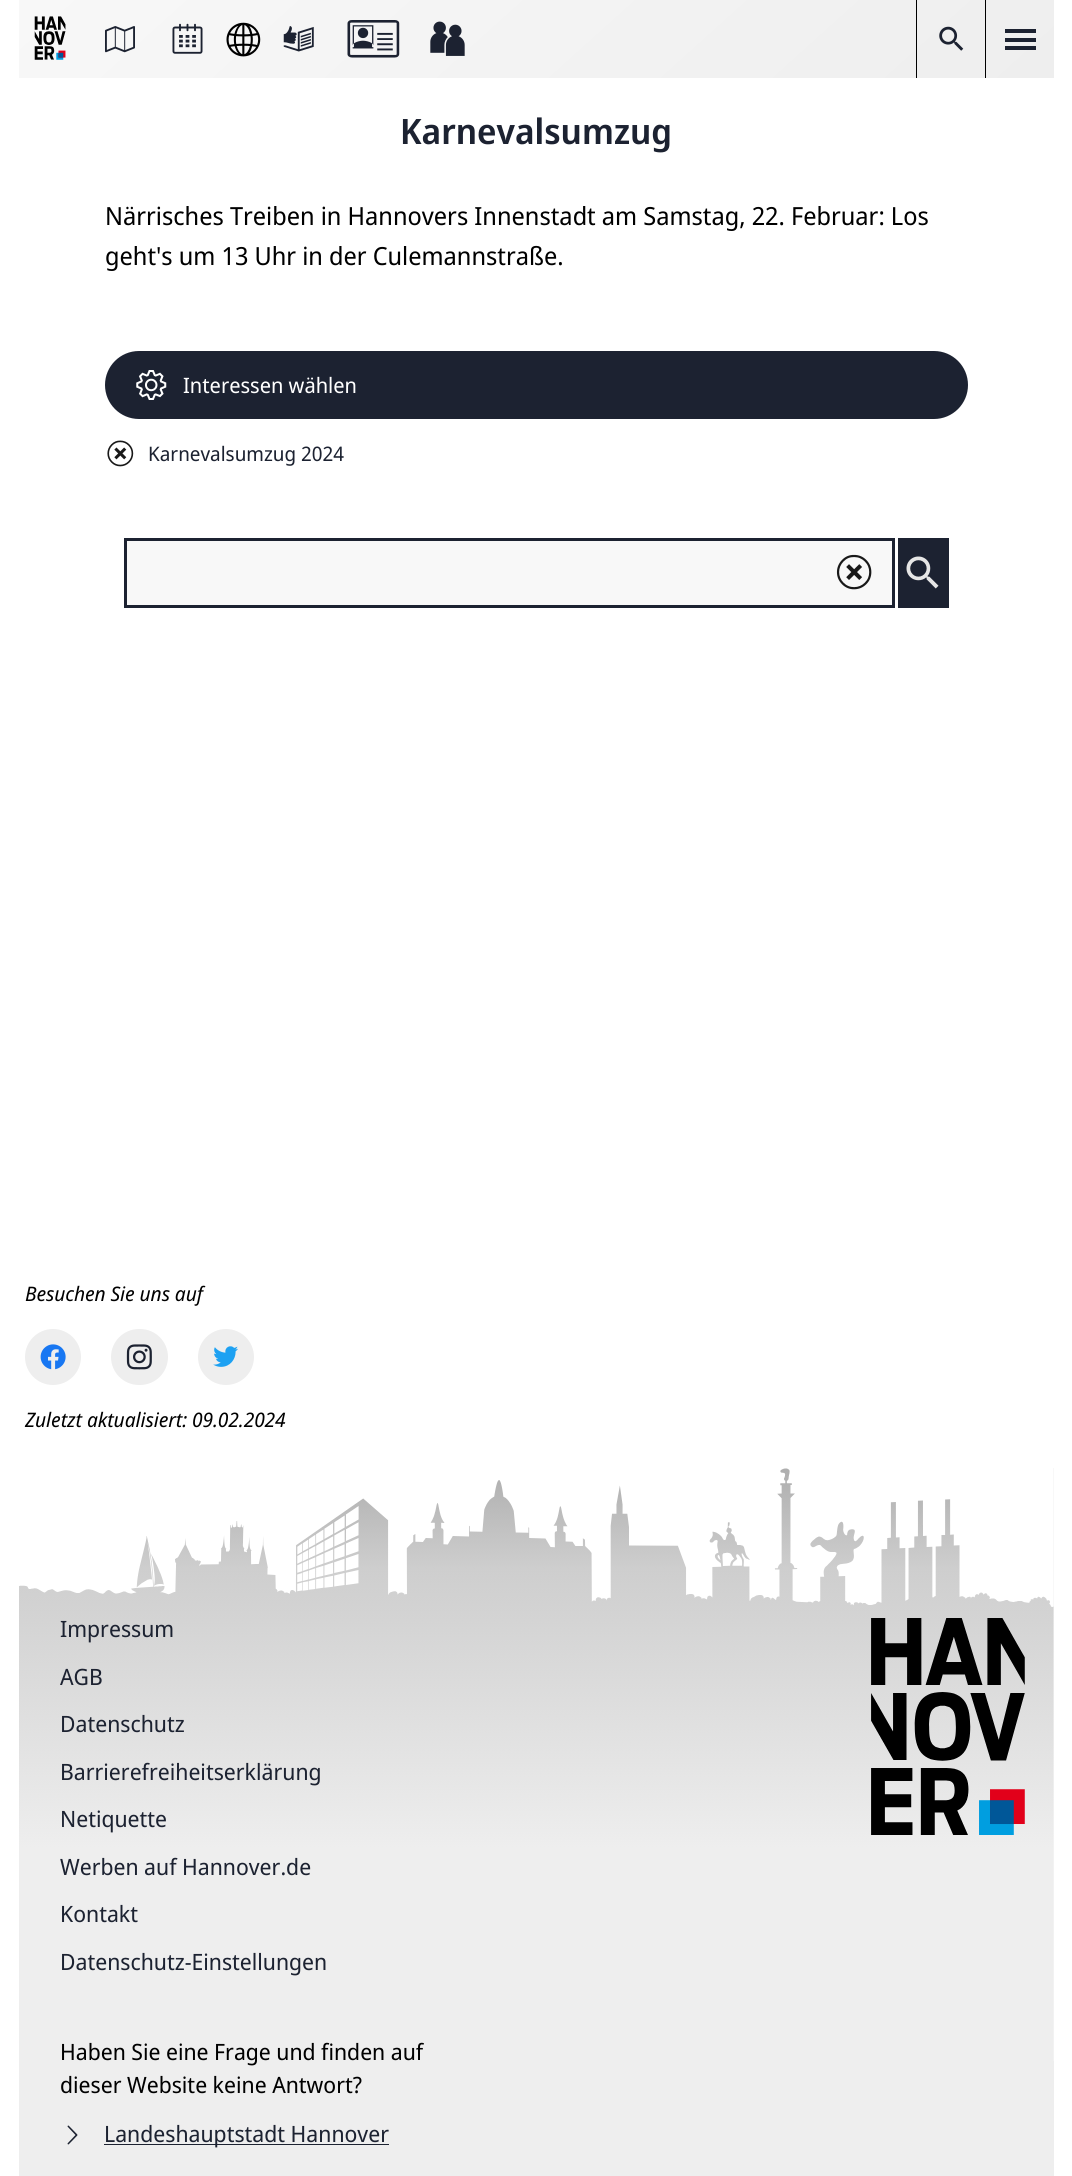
#include <cairo/cairo.h>
#include <math.h>
#include <stddef.h>


static void rounded_rect(cairo_t *cr, double x, double y, double w, double h, double r) {
  cairo_new_sub_path(cr);
  cairo_arc(cr, x + w - r, y + h - r, r, 0, M_PI / 2);
  cairo_arc(cr, x + r, y + h - r, r, M_PI / 2, M_PI);
  cairo_arc(cr, x + r, y + r, r, M_PI, 1.5 * M_PI);
  cairo_arc(cr, x + w - r, y + r, r, 1.5 * M_PI, 2 * M_PI);
  cairo_close_path(cr);
}

static void draw_image(cairo_t *cr, const char *path, double x, double y, double w, double h) {
  cairo_surface_t *image = cairo_image_surface_create_from_png(path);
  cairo_save(cr);
  cairo_set_source_surface(cr, image, x, y);
  cairo_rectangle(cr, x, y, w, h);
  cairo_fill(cr);
  cairo_restore(cr);
  cairo_surface_destroy(image);
}

static void draw(cairo_t *cr) {
  cairo_pattern_t *gradient;
  cairo_set_source_rgb(cr, 1, 1, 1);
  cairo_paint(cr);
  gradient = cairo_pattern_create_linear(787, 317, 285, -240);
  cairo_pattern_add_color_stop_rgba(gradient, 0, 238 / 255.0, 238 / 255.0, 238 / 255.0, 1);
  cairo_pattern_add_color_stop_rgba(gradient, 1, 248 / 255.0, 248 / 255.0, 248 / 255.0, 1);
  cairo_set_source(cr, gradient);
  cairo_pattern_destroy(gradient);
  cairo_rectangle(cr, 19, 0, 1035, 78);
  cairo_fill(cr);
  draw_image(cr, "images/1.png", 34, 16, 32, 44);
  draw_image(cr, "images/2.png", 105, 26, 30, 27);
  draw_image(cr, "images/3.png", 172, 23, 31, 31);
  draw_image(cr, "images/4.png", 226, 22, 35, 35);
  draw_image(cr, "images/5.png", 283, 26, 31, 26);
  draw_image(cr, "images/6.png", 347, 20, 53, 38);
  draw_image(cr, "images/7.png", 430, 21, 35, 35);
  cairo_set_source_rgb(cr, 0, 0, 0);
  cairo_rectangle(cr, 916, 0, 1, 78);
  cairo_fill(cr);
  draw_image(cr, "images/8.png", 939, 26, 25, 25);
  cairo_rectangle(cr, 985, 0, 1, 78);
  cairo_fill(cr);
  cairo_set_source_rgb(cr, 28 / 255.0, 34 / 255.0, 49 / 255.0);
  cairo_rectangle(cr, 1005, 29, 31, 4);
  cairo_fill(cr);
  cairo_rectangle(cr, 1005, 38, 31, 4);
  cairo_fill(cr);
  cairo_rectangle(cr, 1005, 46, 31, 4);
  cairo_fill(cr);
  rounded_rect(cr, 106.5, 352.5, 860, 65, 32.5);
  cairo_fill_preserve(cr);
  cairo_set_line_width(cr, 3);
  cairo_stroke(cr);
  draw_image(cr, "images/9.png", 136, 370, 31, 30);
  draw_image(cr, "images/10.png", 107, 440, 27, 27);
  cairo_set_source_rgb(cr, 248 / 255.0, 248 / 255.0, 248 / 255.0);
  cairo_rectangle(cr, 125.5, 539.5, 768, 67);
  cairo_fill_preserve(cr);
  cairo_set_source_rgb(cr, 28 / 255.0, 34 / 255.0, 49 / 255.0);
  cairo_stroke(cr);
  draw_image(cr, "images/11.png", 836, 554, 36, 36);
  cairo_rectangle(cr, 898, 538, 51, 70);
  cairo_fill(cr);
  draw_image(cr, "images/12.png", 906, 556, 33, 33);
  cairo_set_source_rgb(cr, 238 / 255.0, 238 / 255.0, 238 / 255.0);
  cairo_arc(cr, 53, 1357, 28, 0, 2 * M_PI);
  cairo_fill(cr);
  draw_image(cr, "images/13.png", 40, 1344, 26, 26);
  rounded_rect(cr, 111, 1329, 57, 56, 28);
  cairo_fill(cr);
  draw_image(cr, "images/14.png", 126, 1344, 26, 26);
  cairo_arc(cr, 226, 1357, 28, 0, 2 * M_PI);
  cairo_fill(cr);
  draw_image(cr, "images/15.png", 213, 1346, 25, 21);
  cairo_rectangle(cr, 19, 1468, 1035, 708);
  cairo_fill(cr);
  draw_image(cr, "images/16.png", 19, 1468, 1035, 593);
  draw_image(cr, "images/17.png", 67, 2125, 11, 20);
  cairo_set_source_rgb(cr, 28 / 255.0, 34 / 255.0, 49 / 255.0);
  cairo_rectangle(cr, 104, 2144, 285, 1);
  cairo_fill(cr);
  draw_image(cr, "images/18.png", 871, 1618, 154, 217);
  cairo_select_font_face(cr, "Noto Sans Display SemiBold", CAIRO_FONT_SLANT_NORMAL, CAIRO_FONT_WEIGHT_NORMAL);
  cairo_set_font_size(cr, 35);
  cairo_move_to(cr, 400, 144);
  cairo_show_text(cr, "Karnevalsumzug");
  cairo_select_font_face(cr, "Noto Sans Display", CAIRO_FONT_SLANT_NORMAL, CAIRO_FONT_WEIGHT_NORMAL);
  cairo_set_font_size(cr, 25);
  cairo_set_source_rgb(cr, 0, 0, 0);
  cairo_move_to(cr, 105, 225);
  cairo_show_text(cr, "Närrisches Treiben in Hannovers Innenstadt am Samstag, 22. Februar: Los");
  cairo_move_to(cr, 105, 265);
  cairo_show_text(cr, "geht's um 13 Uhr in der Culemannstraße.");
  cairo_set_font_size(cr, 21.25);
  cairo_set_source_rgb(cr, 1, 1, 1);
  cairo_move_to(cr, 183, 393);
  cairo_show_text(cr, "Interessen wählen");
  cairo_set_font_size(cr, 20);
  cairo_set_source_rgb(cr, 28 / 255.0, 34 / 255.0, 49 / 255.0);
  cairo_move_to(cr, 148, 461);
  cairo_show_text(cr, "Karnevalsumzug 2024");
  cairo_select_font_face(cr, "Noto Sans Display", CAIRO_FONT_SLANT_ITALIC, CAIRO_FONT_WEIGHT_NORMAL);
  cairo_set_source_rgb(cr, 0, 0, 0);
  cairo_move_to(cr, 25, 1301);
  cairo_show_text(cr, "Besuchen Sie uns auf");
  cairo_move_to(cr, 25, 1427);
  cairo_show_text(cr, "Zuletzt aktualisiert: 09.02.2024");
  cairo_select_font_face(cr, "Noto Sans Display", CAIRO_FONT_SLANT_NORMAL, CAIRO_FONT_WEIGHT_NORMAL);
  cairo_set_font_size(cr, 22.5);
  cairo_set_source_rgb(cr, 28 / 255.0, 34 / 255.0, 49 / 255.0);
  cairo_move_to(cr, 60, 1637);
  cairo_show_text(cr, "Impressum");
  cairo_move_to(cr, 60, 1685);
  cairo_show_text(cr, "AGB");
  cairo_move_to(cr, 60, 1732);
  cairo_show_text(cr, "Datenschutz");
  cairo_move_to(cr, 60, 1780);
  cairo_show_text(cr, "Barrierefreiheitserklärung");
  cairo_move_to(cr, 60, 1827);
  cairo_show_text(cr, "Netiquette");
  cairo_move_to(cr, 60, 1875);
  cairo_show_text(cr, "Werben auf Hannover.de");
  cairo_move_to(cr, 60, 1922);
  cairo_show_text(cr, "Kontakt");
  cairo_move_to(cr, 60, 1970);
  cairo_show_text(cr, "Datenschutz-Einstellungen");
  cairo_set_source_rgb(cr, 0, 0, 0);
  cairo_move_to(cr, 60, 2060);
  cairo_show_text(cr, "Haben Sie eine Frage und finden auf");
  cairo_move_to(cr, 60, 2093);
  cairo_show_text(cr, "dieser Website keine Antwort?");
  cairo_set_source_rgb(cr, 28 / 255.0, 34 / 255.0, 49 / 255.0);
  cairo_move_to(cr, 104, 2142);
  cairo_show_text(cr, "Landeshauptstadt Hannover");
}

int main(void) {
  cairo_surface_t *surface = cairo_image_surface_create(CAIRO_FORMAT_RGB24, 1072, 2176);
  cairo_t *cr = cairo_create(surface);
  cairo_font_options_t *options = cairo_font_options_create();
  cairo_font_options_set_hint_metrics(options, CAIRO_HINT_METRICS_OFF);
  cairo_font_options_set_hint_style(options, CAIRO_HINT_STYLE_NONE);
  cairo_set_font_options(cr, options);
  cairo_set_miter_limit(cr, 4);
  draw(cr);
  cairo_surface_write_to_png(surface, "out.png");
  cairo_font_options_destroy(options);
  cairo_destroy(cr);
  cairo_surface_destroy(surface);
  return 0;
}
